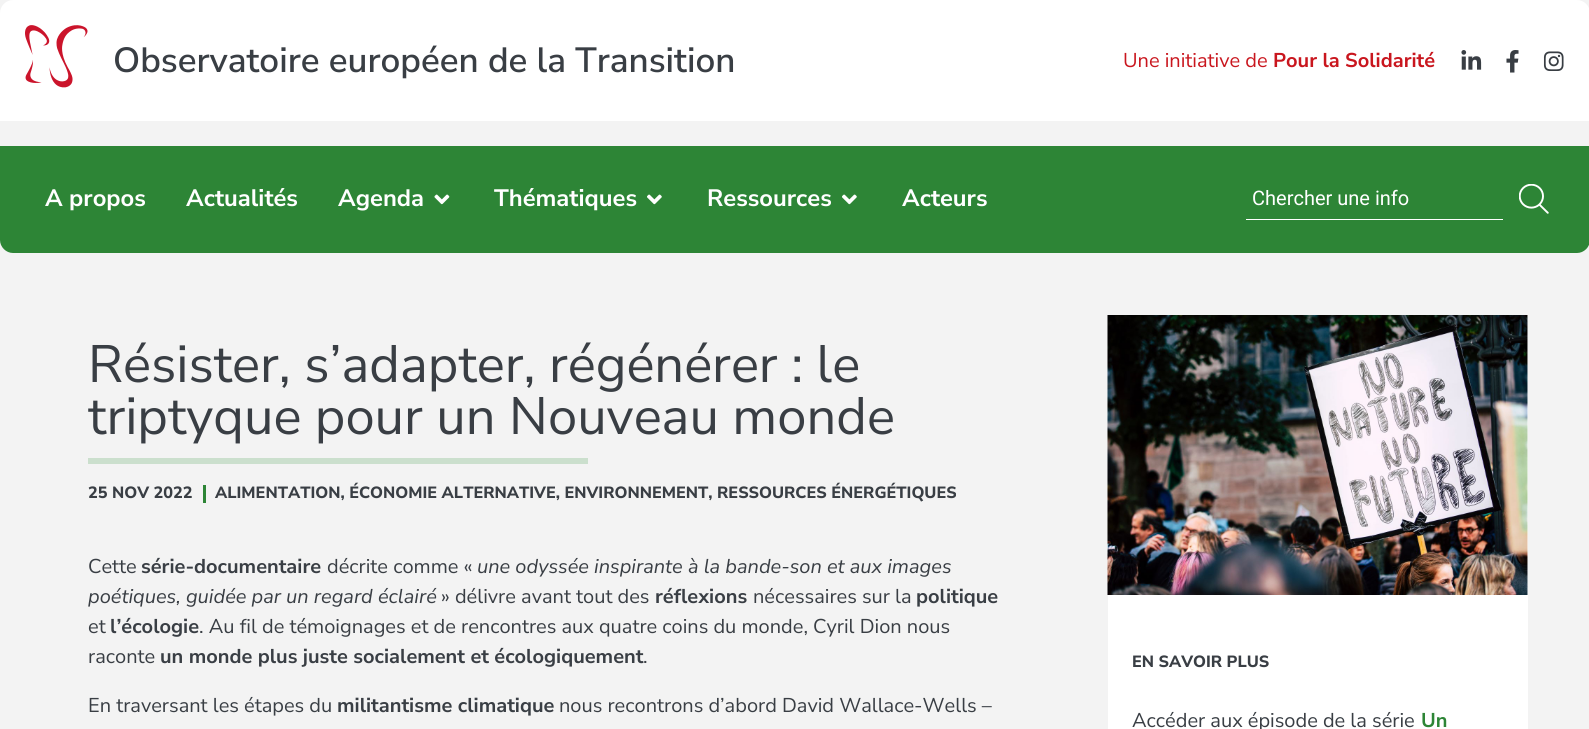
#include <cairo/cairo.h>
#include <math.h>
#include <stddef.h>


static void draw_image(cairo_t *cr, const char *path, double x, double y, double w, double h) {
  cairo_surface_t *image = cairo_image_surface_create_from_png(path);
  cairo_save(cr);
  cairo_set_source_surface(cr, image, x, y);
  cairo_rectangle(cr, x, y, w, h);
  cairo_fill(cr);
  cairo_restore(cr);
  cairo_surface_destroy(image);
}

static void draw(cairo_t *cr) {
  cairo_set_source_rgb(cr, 243 / 255.0, 243 / 255.0, 243 / 255.0);
  cairo_paint(cr);
  cairo_set_source_rgb(cr, 1, 1, 1);
  cairo_new_path(cr);
  cairo_move_to(cr, 13, 0);
  cairo_line_to(cr, 1577, 0);
  cairo_curve_to(cr, 1584, 0, 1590, 6, 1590, 13);
  cairo_line_to(cr, 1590, 121);
  cairo_line_to(cr, 0, 121);
  cairo_line_to(cr, 0, 13);
  cairo_curve_to(cr, 0, 6, 6, 0, 13, 0);
  cairo_close_path(cr);
  cairo_fill(cr);
  draw_image(cr, "images/1.png", 25, 25, 63, 63);
  draw_image(cr, "images/2.png", 1461, 50, 21, 20);
  draw_image(cr, "images/3.png", 1506, 50, 13, 23);
  draw_image(cr, "images/4.png", 1543, 51, 21, 20);
  cairo_set_source_rgb(cr, 45 / 255.0, 133 / 255.0, 54 / 255.0);
  cairo_new_path(cr);
  cairo_move_to(cr, 0, 146);
  cairo_line_to(cr, 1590, 146);
  cairo_line_to(cr, 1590, 240);
  cairo_curve_to(cr, 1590, 247, 1584, 253, 1577, 253);
  cairo_line_to(cr, 13, 253);
  cairo_curve_to(cr, 6, 253, 0, 247, 0, 240);
  cairo_close_path(cr);
  cairo_fill(cr);
  draw_image(cr, "images/5.png", 434, 194, 16, 11);
  draw_image(cr, "images/6.png", 647, 194, 15, 11);
  draw_image(cr, "images/6.png", 842, 194, 15, 11);
  cairo_set_source_rgb(cr, 1, 1, 1);
  cairo_rectangle(cr, 1246, 219, 257, 1);
  cairo_fill(cr);
  draw_image(cr, "images/7.png", 1519, 184, 30, 30);
  cairo_set_source_rgb(cr, 203 / 255.0, 223 / 255.0, 205 / 255.0);
  cairo_rectangle(cr, 88, 458, 500, 6);
  cairo_fill(cr);
  cairo_set_source_rgb(cr, 45 / 255.0, 133 / 255.0, 54 / 255.0);
  cairo_rectangle(cr, 203, 485, 3, 18);
  cairo_fill(cr);
  cairo_set_source_rgb(cr, 1, 1, 1);
  cairo_rectangle(cr, 1108, 315, 420, 414);
  cairo_fill(cr);
  draw_image(cr, "images/8.png", 1107, 315, 421, 280);
  cairo_select_font_face(cr, "Nunito Sans SemiBold", CAIRO_FONT_SLANT_NORMAL, CAIRO_FONT_WEIGHT_NORMAL);
  cairo_set_font_size(cr, 35);
  cairo_set_source_rgb(cr, 57 / 255.0, 62 / 255.0, 68 / 255.0);
  cairo_move_to(cr, 113, 72);
  cairo_show_text(cr, "Observatoire européen de la Transition");
  cairo_select_font_face(cr, "Nunito Sans", CAIRO_FONT_SLANT_NORMAL, CAIRO_FONT_WEIGHT_NORMAL);
  cairo_set_font_size(cr, 20);
  cairo_set_source_rgb(cr, 201 / 255.0, 22 / 255.0, 30 / 255.0);
  cairo_move_to(cr, 1123, 67);
  cairo_show_text(cr, "Une initiative de");
  cairo_select_font_face(cr, "Nunito Sans", CAIRO_FONT_SLANT_NORMAL, CAIRO_FONT_WEIGHT_BOLD);
  cairo_move_to(cr, 1273, 67);
  cairo_show_text(cr, "Pour la Solidarité");
  cairo_set_font_size(cr, 23.75);
  cairo_set_source_rgb(cr, 1, 1, 1);
  cairo_move_to(cr, 45, 206);
  cairo_show_text(cr, "A propos");
  cairo_move_to(cr, 186, 206);
  cairo_show_text(cr, "Actualités");
  cairo_move_to(cr, 338, 206);
  cairo_show_text(cr, "Agenda");
  cairo_move_to(cr, 494, 206);
  cairo_show_text(cr, "Thématiques");
  cairo_move_to(cr, 707, 206);
  cairo_show_text(cr, "Ressources");
  cairo_move_to(cr, 902, 206);
  cairo_show_text(cr, "Acteurs");
  cairo_select_font_face(cr, "Roboto", CAIRO_FONT_SLANT_NORMAL, CAIRO_FONT_WEIGHT_NORMAL);
  cairo_set_font_size(cr, 20);
  cairo_move_to(cr, 1252, 205);
  cairo_show_text(cr, "Chercher une info");
  cairo_select_font_face(cr, "Nunito Sans", CAIRO_FONT_SLANT_NORMAL, CAIRO_FONT_WEIGHT_NORMAL);
  cairo_set_font_size(cr, 52.5);
  cairo_set_source_rgb(cr, 57 / 255.0, 62 / 255.0, 68 / 255.0);
  cairo_move_to(cr, 88, 382);
  cairo_show_text(cr, "Résister, s’adapter, régénérer : le");
  cairo_move_to(cr, 88, 434);
  cairo_show_text(cr, "triptyque pour un Nouveau monde");
  cairo_select_font_face(cr, "Nunito Sans ExtraBold", CAIRO_FONT_SLANT_NORMAL, CAIRO_FONT_WEIGHT_NORMAL);
  cairo_set_font_size(cr, 16.25);
  cairo_move_to(cr, 88, 498);
  cairo_show_text(cr, "25 NOV 2022");
  cairo_move_to(cr, 215, 498);
  cairo_show_text(cr, "ALIMENTATION, ÉCONOMIE ALTERNATIVE, ENVIRONNEMENT, RESSOURCES ÉNERGÉTIQUES");
  cairo_select_font_face(cr, "Nunito Sans", CAIRO_FONT_SLANT_NORMAL, CAIRO_FONT_WEIGHT_NORMAL);
  cairo_set_font_size(cr, 20);
  cairo_move_to(cr, 88, 573);
  cairo_show_text(cr, "Cette");
  cairo_select_font_face(cr, "Nunito Sans", CAIRO_FONT_SLANT_NORMAL, CAIRO_FONT_WEIGHT_BOLD);
  cairo_move_to(cr, 141, 573);
  cairo_show_text(cr, "série-documentaire");
  cairo_select_font_face(cr, "Nunito Sans", CAIRO_FONT_SLANT_NORMAL, CAIRO_FONT_WEIGHT_NORMAL);
  cairo_move_to(cr, 327, 573);
  cairo_show_text(cr, "décrite comme «");
  cairo_select_font_face(cr, "Nunito Sans", CAIRO_FONT_SLANT_ITALIC, CAIRO_FONT_WEIGHT_NORMAL);
  cairo_move_to(cr, 477, 573);
  cairo_show_text(cr, "une odyssée inspirante à la bande-son et aux images");
  cairo_move_to(cr, 88, 603);
  cairo_show_text(cr, "poétiques, guidée par un regard éclairé");
  cairo_select_font_face(cr, "Nunito Sans", CAIRO_FONT_SLANT_NORMAL, CAIRO_FONT_WEIGHT_NORMAL);
  cairo_move_to(cr, 441, 603);
  cairo_show_text(cr, "» délivre avant tout des");
  cairo_select_font_face(cr, "Nunito Sans", CAIRO_FONT_SLANT_NORMAL, CAIRO_FONT_WEIGHT_BOLD);
  cairo_move_to(cr, 655, 603);
  cairo_show_text(cr, "réflexions");
  cairo_select_font_face(cr, "Nunito Sans", CAIRO_FONT_SLANT_NORMAL, CAIRO_FONT_WEIGHT_NORMAL);
  cairo_move_to(cr, 753, 603);
  cairo_show_text(cr, "nécessaires sur la");
  cairo_select_font_face(cr, "Nunito Sans", CAIRO_FONT_SLANT_NORMAL, CAIRO_FONT_WEIGHT_BOLD);
  cairo_move_to(cr, 916, 603);
  cairo_show_text(cr, "politique");
  cairo_select_font_face(cr, "Nunito Sans", CAIRO_FONT_SLANT_NORMAL, CAIRO_FONT_WEIGHT_NORMAL);
  cairo_move_to(cr, 88, 633);
  cairo_show_text(cr, "et");
  cairo_select_font_face(cr, "Nunito Sans", CAIRO_FONT_SLANT_NORMAL, CAIRO_FONT_WEIGHT_BOLD);
  cairo_move_to(cr, 110, 633);
  cairo_show_text(cr, "l’écologie");
  cairo_select_font_face(cr, "Nunito Sans", CAIRO_FONT_SLANT_NORMAL, CAIRO_FONT_WEIGHT_NORMAL);
  cairo_move_to(cr, 199, 633);
  cairo_show_text(cr, ". Au fil de témoignages et de rencontres aux quatre coins du monde, Cyril Dion nous");
  cairo_move_to(cr, 88, 663);
  cairo_show_text(cr, "raconte");
  cairo_select_font_face(cr, "Nunito Sans", CAIRO_FONT_SLANT_NORMAL, CAIRO_FONT_WEIGHT_BOLD);
  cairo_move_to(cr, 160, 663);
  cairo_show_text(cr, "un monde plus juste socialement et écologiquement");
  cairo_select_font_face(cr, "Nunito Sans", CAIRO_FONT_SLANT_NORMAL, CAIRO_FONT_WEIGHT_NORMAL);
  cairo_move_to(cr, 643, 663);
  cairo_show_text(cr, ".");
  cairo_move_to(cr, 88, 712);
  cairo_show_text(cr, "En traversant les étapes du");
  cairo_select_font_face(cr, "Nunito Sans", CAIRO_FONT_SLANT_NORMAL, CAIRO_FONT_WEIGHT_BOLD);
  cairo_move_to(cr, 337, 712);
  cairo_show_text(cr, "militantisme climatique");
  cairo_select_font_face(cr, "Nunito Sans", CAIRO_FONT_SLANT_NORMAL, CAIRO_FONT_WEIGHT_NORMAL);
  cairo_move_to(cr, 559, 712);
  cairo_show_text(cr, "nous recontrons d’abord David Wallace-Wells –");
  cairo_select_font_face(cr, "Nunito Sans ExtraBold", CAIRO_FONT_SLANT_NORMAL, CAIRO_FONT_WEIGHT_NORMAL);
  cairo_set_font_size(cr, 16.25);
  cairo_move_to(cr, 1132, 667);
  cairo_show_text(cr, "EN SAVOIR PLUS");
  cairo_select_font_face(cr, "Nunito Sans", CAIRO_FONT_SLANT_NORMAL, CAIRO_FONT_WEIGHT_NORMAL);
  cairo_set_font_size(cr, 20);
  cairo_move_to(cr, 1132, 727);
  cairo_show_text(cr, "Accéder aux épisode de la série");
  cairo_select_font_face(cr, "Nunito Sans", CAIRO_FONT_SLANT_NORMAL, CAIRO_FONT_WEIGHT_BOLD);
  cairo_set_source_rgb(cr, 45 / 255.0, 133 / 255.0, 54 / 255.0);
  cairo_move_to(cr, 1421, 727);
  cairo_show_text(cr, "Un");
}

int main(void) {
  cairo_surface_t *surface = cairo_image_surface_create(CAIRO_FORMAT_RGB24, 1589, 729);
  cairo_t *cr = cairo_create(surface);
  cairo_font_options_t *options = cairo_font_options_create();
  cairo_font_options_set_hint_metrics(options, CAIRO_HINT_METRICS_OFF);
  cairo_font_options_set_hint_style(options, CAIRO_HINT_STYLE_NONE);
  cairo_set_font_options(cr, options);
  cairo_set_miter_limit(cr, 4);
  draw(cr);
  cairo_surface_write_to_png(surface, "out.png");
  cairo_font_options_destroy(options);
  cairo_destroy(cr);
  cairo_surface_destroy(surface);
  return 0;
}
